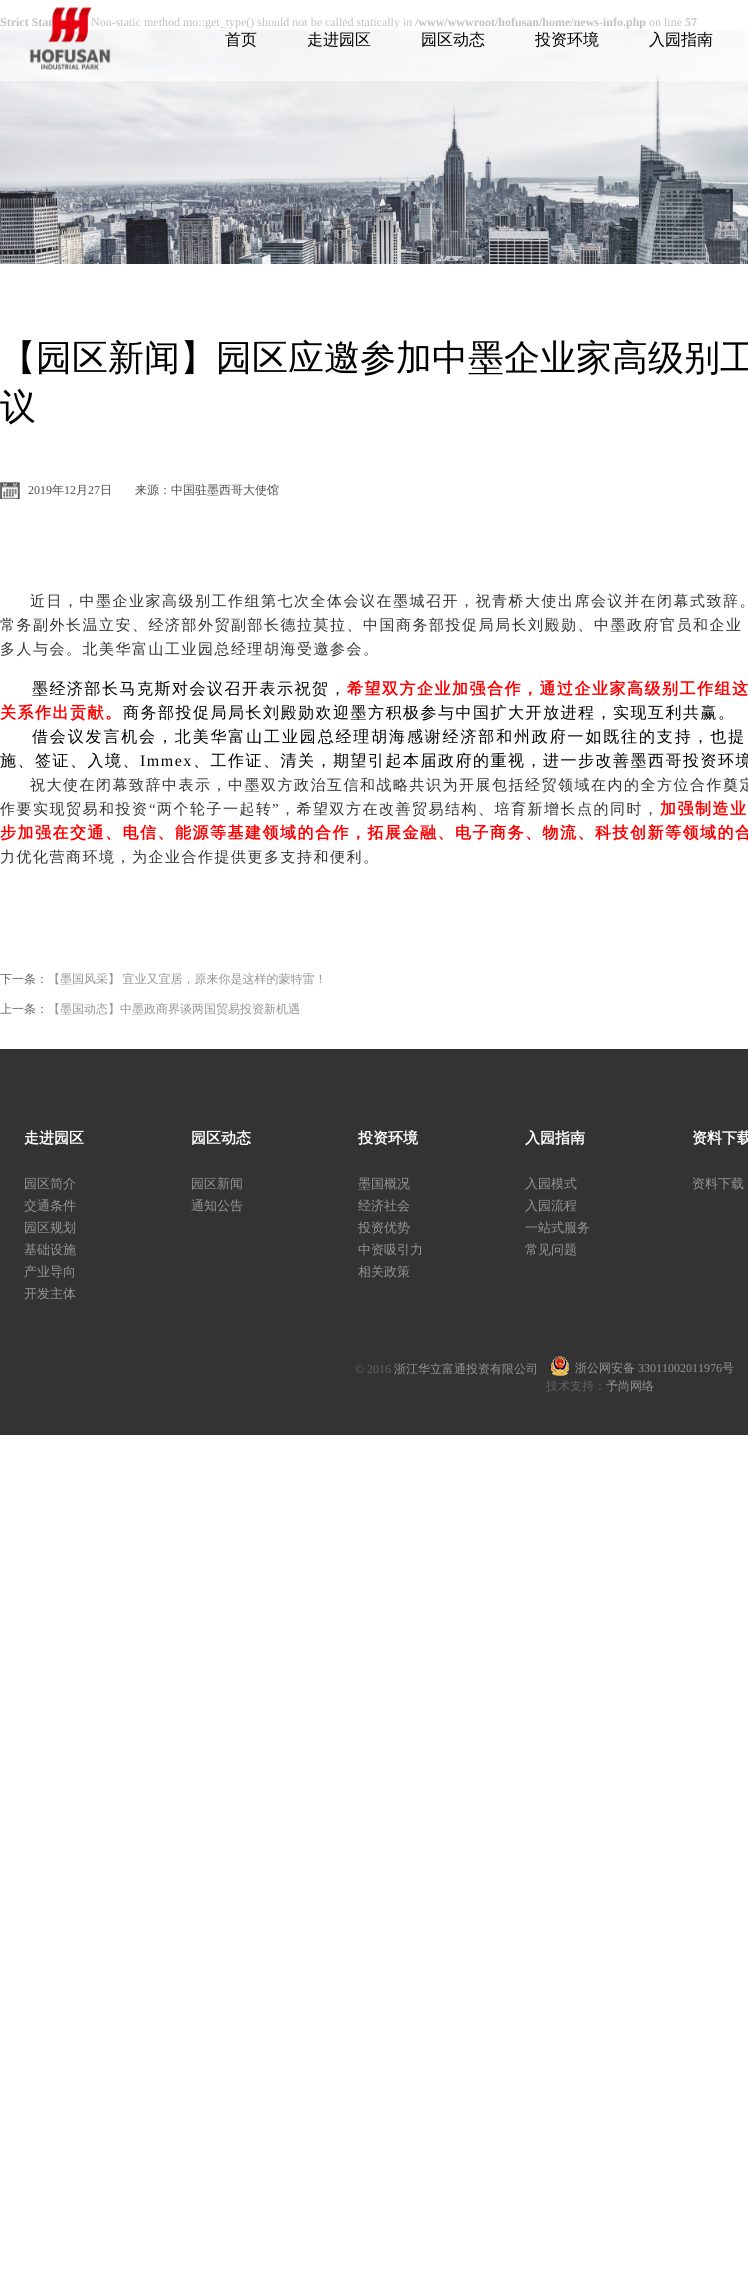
#include <cairo/cairo.h>
#include <math.h>
#include <stddef.h>


static void draw_spaced(cairo_t *cr, double x, double y, const char *s, double letter, double word) {
  cairo_move_to(cr, x, y);
  while (*s) {
    char ch[5] = {0};
    int n = 0;
    do ch[n++] = *s++; while ((*s & 0xC0) == 0x80);
    cairo_show_text(cr, ch);
    cairo_rel_move_to(cr, letter + word * (*ch == ' '), 0);
  }
}

static void draw_image(cairo_t *cr, const char *path, double x, double y, double w, double h) {
  cairo_surface_t *image = cairo_image_surface_create_from_png(path);
  cairo_save(cr);
  cairo_set_source_surface(cr, image, x, y);
  cairo_rectangle(cr, x, y, w, h);
  cairo_fill(cr);
  cairo_restore(cr);
  cairo_surface_destroy(image);
}

static void draw(cairo_t *cr) {
  cairo_set_source_rgb(cr, 1, 1, 1);
  cairo_paint(cr);
  draw_image(cr, "images/1.png", 0, 30, 748, 234);
  draw_image(cr, "images/3.png", 0, 482, 20, 17);
  cairo_set_source_rgb(cr, 51 / 255.0, 51 / 255.0, 51 / 255.0);
  cairo_rectangle(cr, 0, 1049, 748, 386);
  cairo_fill(cr);
  draw_image(cr, "images/4.png", 551, 1356, 18, 20);
  cairo_select_font_face(cr, "Liberation Serif", CAIRO_FONT_SLANT_NORMAL, CAIRO_FONT_WEIGHT_BOLD);
  cairo_set_font_size(cr, 12);
  cairo_set_source_rgb(cr, 99 / 255.0, 99 / 255.0, 99 / 255.0);
  cairo_move_to(cr, 0, 26);
  cairo_show_text(cr, "Strict Stan");
  cairo_select_font_face(cr, "Liberation Serif", CAIRO_FONT_SLANT_NORMAL, CAIRO_FONT_WEIGHT_NORMAL);
  cairo_move_to(cr, 91, 26);
  cairo_show_text(cr, "Non-static method mo::get_type() should not be called statically in");
  cairo_select_font_face(cr, "Liberation Serif", CAIRO_FONT_SLANT_NORMAL, CAIRO_FONT_WEIGHT_BOLD);
  cairo_move_to(cr, 415, 26);
  cairo_show_text(cr, "/www/wwwroot/hofusan/home/news-info.php");
  cairo_select_font_face(cr, "Liberation Serif", CAIRO_FONT_SLANT_NORMAL, CAIRO_FONT_WEIGHT_NORMAL);
  cairo_move_to(cr, 649, 26);
  cairo_show_text(cr, "on line");
  cairo_select_font_face(cr, "Liberation Serif", CAIRO_FONT_SLANT_NORMAL, CAIRO_FONT_WEIGHT_BOLD);
  cairo_move_to(cr, 685, 26);
  cairo_show_text(cr, "57");
  cairo_set_source_rgba(cr, 1, 1, 1, 0.6);
  cairo_rectangle(cr, 0, 17, 748, 64);
  cairo_fill(cr);
  draw_image(cr, "images/2.png", 29, 7, 82, 63);
  cairo_select_font_face(cr, "WenQuanYi Zen Hei Medium", CAIRO_FONT_SLANT_NORMAL, CAIRO_FONT_WEIGHT_NORMAL);
  cairo_set_font_size(cr, 16);
  cairo_set_source_rgb(cr, 0, 0, 0);
  cairo_move_to(cr, 225, 45);
  cairo_show_text(cr, "首页");
  cairo_move_to(cr, 307, 45);
  cairo_show_text(cr, "走进园区");
  cairo_move_to(cr, 421, 45);
  cairo_show_text(cr, "园区动态");
  cairo_move_to(cr, 535, 45);
  cairo_show_text(cr, "投资环境");
  cairo_move_to(cr, 649, 45);
  cairo_show_text(cr, "入园指南");
  cairo_set_font_size(cr, 36);
  cairo_move_to(cr, 0, 370);
  cairo_show_text(cr, "【园区新闻】园区应邀参加中墨企业家高级别工");
  cairo_move_to(cr, 0, 419);
  cairo_show_text(cr, "议");
  cairo_select_font_face(cr, "Liberation Serif", CAIRO_FONT_SLANT_NORMAL, CAIRO_FONT_WEIGHT_NORMAL);
  cairo_set_font_size(cr, 12);
  cairo_set_source_rgb(cr, 77 / 255.0, 77 / 255.0, 77 / 255.0);
  cairo_move_to(cr, 28, 494);
  cairo_show_text(cr, "2019");
  cairo_select_font_face(cr, "WenQuanYi Zen Hei Medium", CAIRO_FONT_SLANT_NORMAL, CAIRO_FONT_WEIGHT_NORMAL);
  cairo_move_to(cr, 52, 494);
  cairo_show_text(cr, "年");
  cairo_select_font_face(cr, "Liberation Serif", CAIRO_FONT_SLANT_NORMAL, CAIRO_FONT_WEIGHT_NORMAL);
  cairo_move_to(cr, 64, 494);
  cairo_show_text(cr, "12");
  cairo_select_font_face(cr, "WenQuanYi Zen Hei Medium", CAIRO_FONT_SLANT_NORMAL, CAIRO_FONT_WEIGHT_NORMAL);
  cairo_move_to(cr, 76, 494);
  cairo_show_text(cr, "月");
  cairo_select_font_face(cr, "Liberation Serif", CAIRO_FONT_SLANT_NORMAL, CAIRO_FONT_WEIGHT_NORMAL);
  cairo_move_to(cr, 88, 494);
  cairo_show_text(cr, "27");
  cairo_select_font_face(cr, "WenQuanYi Zen Hei Medium", CAIRO_FONT_SLANT_NORMAL, CAIRO_FONT_WEIGHT_NORMAL);
  cairo_move_to(cr, 100, 494);
  cairo_show_text(cr, "日");
  cairo_move_to(cr, 135, 494);
  cairo_show_text(cr, "来源：中国驻墨西哥大使馆");
  cairo_set_font_size(cr, 15);
  cairo_set_source_rgb(cr, 51 / 255.0, 51 / 255.0, 51 / 255.0);
  draw_spaced(cr, 30, 606, "近日，中墨企业家高级别工作组第七次全体会议在墨城召开，祝青桥大使出席会议并在闭幕式致辞。", 1.5, 0);
  draw_spaced(cr, 0, 630, "常务副外长温立安、经济部外贸副部长德拉莫拉、中国商务部投促局局长刘殿勋、中墨政府官员和企业", 1.5, 0);
  draw_spaced(cr, 0, 654, "多人与会。北美华富山工业园总经理胡海受邀参会。", 1.5, 0);
  cairo_set_font_size(cr, 16);
  cairo_set_source_rgb(cr, 0, 0, 0);
  draw_spaced(cr, 32, 694, "墨经济部长马克斯对会议召开表示祝贺，", 1.5, 0);
  cairo_select_font_face(cr, "WenQuanYi Zen Hei", CAIRO_FONT_SLANT_NORMAL, CAIRO_FONT_WEIGHT_BOLD);
  cairo_set_source_rgb(cr, 1, 0, 0);
  draw_spaced(cr, 347, 694, "希望双方企业加强合作，通过企业家高级别工作组这", 1.5, 0);
  draw_spaced(cr, 0, 718, "关系作出贡献。", 1.5, 0);
  cairo_select_font_face(cr, "WenQuanYi Zen Hei Medium", CAIRO_FONT_SLANT_NORMAL, CAIRO_FONT_WEIGHT_NORMAL);
  cairo_set_source_rgb(cr, 0, 0, 0);
  draw_spaced(cr, 123, 718, "商务部投促局局长刘殿勋欢迎墨方积极参与中国扩大开放进程，实现互利共赢。", 1.5, 0);
  draw_spaced(cr, 32, 742, "借会议发言机会，北美华富山工业园总经理胡海感谢经济部和州政府一如既往的支持，也提", 1.85, 0);
  draw_spaced(cr, 0, 766, "施、签证、入境、", 1.5, 0);
  cairo_select_font_face(cr, "Liberation Serif", CAIRO_FONT_SLANT_NORMAL, CAIRO_FONT_WEIGHT_NORMAL);
  draw_spaced(cr, 140, 766, "Immex", 1.5, 0);
  cairo_select_font_face(cr, "WenQuanYi Zen Hei Medium", CAIRO_FONT_SLANT_NORMAL, CAIRO_FONT_WEIGHT_NORMAL);
  draw_spaced(cr, 193, 766, "、工作证、清关，期望引起本届政府的重视，进一步改善墨西哥投资环境", 1.5, 0);
  cairo_set_font_size(cr, 15);
  cairo_set_source_rgb(cr, 51 / 255.0, 51 / 255.0, 51 / 255.0);
  draw_spaced(cr, 30, 790, "祝大使在闭幕致辞中表示，中墨双方政治互信和战略共识为开展包括经贸领域在内的全方位合作奠定", 1.5, 0);
  draw_spaced(cr, 0, 814, "作要实现贸易和投资", 1.5, 0);
  cairo_select_font_face(cr, "Liberation Serif", CAIRO_FONT_SLANT_NORMAL, CAIRO_FONT_WEIGHT_NORMAL);
  draw_spaced(cr, 149, 814, "“", 1.5, 0);
  cairo_select_font_face(cr, "WenQuanYi Zen Hei Medium", CAIRO_FONT_SLANT_NORMAL, CAIRO_FONT_WEIGHT_NORMAL);
  draw_spaced(cr, 157, 814, "两个轮子一起转", 1.5, 0);
  cairo_select_font_face(cr, "Liberation Serif", CAIRO_FONT_SLANT_NORMAL, CAIRO_FONT_WEIGHT_NORMAL);
  draw_spaced(cr, 272, 814, "”", 1.5, 0);
  cairo_select_font_face(cr, "WenQuanYi Zen Hei Medium", CAIRO_FONT_SLANT_NORMAL, CAIRO_FONT_WEIGHT_NORMAL);
  draw_spaced(cr, 280, 814, "，希望双方在改善贸易结构、培育新增长点的同时，", 1.5, 0);
  cairo_select_font_face(cr, "WenQuanYi Zen Hei", CAIRO_FONT_SLANT_NORMAL, CAIRO_FONT_WEIGHT_BOLD);
  cairo_set_font_size(cr, 16);
  cairo_set_source_rgb(cr, 1, 0, 0);
  draw_spaced(cr, 660, 814, "加强制造业", 1.5, 0);
  draw_spaced(cr, 0, 838, "步加强在交通、电信、能源等基建领域的合作，拓展金融、电子商务、物流、科技创新等领域的合", 1.5, 0);
  cairo_select_font_face(cr, "WenQuanYi Zen Hei Medium", CAIRO_FONT_SLANT_NORMAL, CAIRO_FONT_WEIGHT_NORMAL);
  cairo_set_font_size(cr, 15);
  cairo_set_source_rgb(cr, 51 / 255.0, 51 / 255.0, 51 / 255.0);
  draw_spaced(cr, 0, 862, "力优化营商环境，为企业合作提供更多支持和便利。", 1.5, 0);
  cairo_set_font_size(cr, 12);
  cairo_set_source_rgb(cr, 99 / 255.0, 99 / 255.0, 99 / 255.0);
  cairo_move_to(cr, 0, 983);
  cairo_show_text(cr, "下一条：");
  cairo_set_source_rgb(cr, 148 / 255.0, 148 / 255.0, 148 / 255.0);
  draw_spaced(cr, 48, 983, "【墨国风采】 宜业又宜居，原来你是这样的蒙特雷！", 0, -1);
  cairo_set_source_rgb(cr, 99 / 255.0, 99 / 255.0, 99 / 255.0);
  cairo_move_to(cr, 0, 1013);
  cairo_show_text(cr, "上一条：");
  cairo_set_source_rgb(cr, 148 / 255.0, 148 / 255.0, 148 / 255.0);
  cairo_move_to(cr, 48, 1013);
  cairo_show_text(cr, "【墨国动态】中墨政商界谈两国贸易投资新机遇");
  cairo_select_font_face(cr, "WenQuanYi Zen Hei", CAIRO_FONT_SLANT_NORMAL, CAIRO_FONT_WEIGHT_BOLD);
  cairo_set_font_size(cr, 15);
  cairo_set_source_rgb(cr, 1, 1, 1);
  cairo_move_to(cr, 24, 1143);
  cairo_show_text(cr, "走进园区");
  cairo_select_font_face(cr, "WenQuanYi Zen Hei Medium", CAIRO_FONT_SLANT_NORMAL, CAIRO_FONT_WEIGHT_NORMAL);
  cairo_set_font_size(cr, 13);
  cairo_set_source_rgb(cr, 148 / 255.0, 148 / 255.0, 148 / 255.0);
  cairo_move_to(cr, 24, 1188);
  cairo_show_text(cr, "园区简介");
  cairo_move_to(cr, 24, 1210);
  cairo_show_text(cr, "交通条件");
  cairo_move_to(cr, 24, 1232);
  cairo_show_text(cr, "园区规划");
  cairo_move_to(cr, 24, 1254);
  cairo_show_text(cr, "基础设施");
  cairo_move_to(cr, 24, 1276);
  cairo_show_text(cr, "产业导向");
  cairo_move_to(cr, 24, 1298);
  cairo_show_text(cr, "开发主体");
  cairo_select_font_face(cr, "WenQuanYi Zen Hei", CAIRO_FONT_SLANT_NORMAL, CAIRO_FONT_WEIGHT_BOLD);
  cairo_set_font_size(cr, 15);
  cairo_set_source_rgb(cr, 1, 1, 1);
  cairo_move_to(cr, 191, 1143);
  cairo_show_text(cr, "园区动态");
  cairo_select_font_face(cr, "WenQuanYi Zen Hei Medium", CAIRO_FONT_SLANT_NORMAL, CAIRO_FONT_WEIGHT_NORMAL);
  cairo_set_font_size(cr, 13);
  cairo_set_source_rgb(cr, 148 / 255.0, 148 / 255.0, 148 / 255.0);
  cairo_move_to(cr, 191, 1188);
  cairo_show_text(cr, "园区新闻");
  cairo_move_to(cr, 191, 1210);
  cairo_show_text(cr, "通知公告");
  cairo_select_font_face(cr, "WenQuanYi Zen Hei", CAIRO_FONT_SLANT_NORMAL, CAIRO_FONT_WEIGHT_BOLD);
  cairo_set_font_size(cr, 15);
  cairo_set_source_rgb(cr, 1, 1, 1);
  cairo_move_to(cr, 358, 1143);
  cairo_show_text(cr, "投资环境");
  cairo_select_font_face(cr, "WenQuanYi Zen Hei Medium", CAIRO_FONT_SLANT_NORMAL, CAIRO_FONT_WEIGHT_NORMAL);
  cairo_set_font_size(cr, 13);
  cairo_set_source_rgb(cr, 148 / 255.0, 148 / 255.0, 148 / 255.0);
  cairo_move_to(cr, 358, 1188);
  cairo_show_text(cr, "墨国概况");
  cairo_move_to(cr, 358, 1210);
  cairo_show_text(cr, "经济社会");
  cairo_move_to(cr, 358, 1232);
  cairo_show_text(cr, "投资优势");
  cairo_move_to(cr, 358, 1254);
  cairo_show_text(cr, "中资吸引力");
  cairo_move_to(cr, 358, 1276);
  cairo_show_text(cr, "相关政策");
  cairo_select_font_face(cr, "WenQuanYi Zen Hei", CAIRO_FONT_SLANT_NORMAL, CAIRO_FONT_WEIGHT_BOLD);
  cairo_set_font_size(cr, 15);
  cairo_set_source_rgb(cr, 1, 1, 1);
  cairo_move_to(cr, 525, 1143);
  cairo_show_text(cr, "入园指南");
  cairo_select_font_face(cr, "WenQuanYi Zen Hei Medium", CAIRO_FONT_SLANT_NORMAL, CAIRO_FONT_WEIGHT_NORMAL);
  cairo_set_font_size(cr, 13);
  cairo_set_source_rgb(cr, 148 / 255.0, 148 / 255.0, 148 / 255.0);
  cairo_move_to(cr, 525, 1188);
  cairo_show_text(cr, "入园模式");
  cairo_move_to(cr, 525, 1210);
  cairo_show_text(cr, "入园流程");
  cairo_move_to(cr, 525, 1232);
  cairo_show_text(cr, "一站式服务");
  cairo_move_to(cr, 525, 1254);
  cairo_show_text(cr, "常见问题");
  cairo_select_font_face(cr, "WenQuanYi Zen Hei", CAIRO_FONT_SLANT_NORMAL, CAIRO_FONT_WEIGHT_BOLD);
  cairo_set_font_size(cr, 15);
  cairo_set_source_rgb(cr, 1, 1, 1);
  cairo_move_to(cr, 692, 1143);
  cairo_show_text(cr, "资料下载");
  cairo_select_font_face(cr, "WenQuanYi Zen Hei Medium", CAIRO_FONT_SLANT_NORMAL, CAIRO_FONT_WEIGHT_NORMAL);
  cairo_set_font_size(cr, 13);
  cairo_set_source_rgb(cr, 148 / 255.0, 148 / 255.0, 148 / 255.0);
  cairo_move_to(cr, 692, 1188);
  cairo_show_text(cr, "资料下载");
  cairo_select_font_face(cr, "Liberation Serif", CAIRO_FONT_SLANT_NORMAL, CAIRO_FONT_WEIGHT_NORMAL);
  cairo_set_font_size(cr, 12);
  cairo_set_source_rgb(cr, 99 / 255.0, 99 / 255.0, 99 / 255.0);
  cairo_move_to(cr, 355, 1373);
  cairo_show_text(cr, "© 2016");
  cairo_select_font_face(cr, "WenQuanYi Zen Hei Medium", CAIRO_FONT_SLANT_NORMAL, CAIRO_FONT_WEIGHT_NORMAL);
  cairo_set_source_rgb(cr, 148 / 255.0, 148 / 255.0, 148 / 255.0);
  cairo_move_to(cr, 394, 1373);
  cairo_show_text(cr, "浙江华立富通投资有限公司");
  cairo_move_to(cr, 575, 1372);
  cairo_show_text(cr, "浙公网安备");
  cairo_select_font_face(cr, "Liberation Serif", CAIRO_FONT_SLANT_NORMAL, CAIRO_FONT_WEIGHT_NORMAL);
  cairo_move_to(cr, 638, 1372);
  cairo_show_text(cr, "33011002011976");
  cairo_select_font_face(cr, "WenQuanYi Zen Hei Medium", CAIRO_FONT_SLANT_NORMAL, CAIRO_FONT_WEIGHT_NORMAL);
  cairo_move_to(cr, 722, 1372);
  cairo_show_text(cr, "号");
  cairo_set_source_rgb(cr, 99 / 255.0, 99 / 255.0, 99 / 255.0);
  cairo_move_to(cr, 546, 1390);
  cairo_show_text(cr, "技术支持：");
  cairo_set_source_rgb(cr, 148 / 255.0, 148 / 255.0, 148 / 255.0);
  cairo_move_to(cr, 606, 1390);
  cairo_show_text(cr, "予尚网络");
}

int main(void) {
  cairo_surface_t *surface = cairo_image_surface_create(CAIRO_FORMAT_RGB24, 748, 2275);
  cairo_t *cr = cairo_create(surface);
  cairo_font_options_t *options = cairo_font_options_create();
  cairo_font_options_set_hint_metrics(options, CAIRO_HINT_METRICS_OFF);
  cairo_font_options_set_hint_style(options, CAIRO_HINT_STYLE_NONE);
  cairo_set_font_options(cr, options);
  cairo_set_miter_limit(cr, 4);
  draw(cr);
  cairo_surface_write_to_png(surface, "out.png");
  cairo_font_options_destroy(options);
  cairo_destroy(cr);
  cairo_surface_destroy(surface);
  return 0;
}
